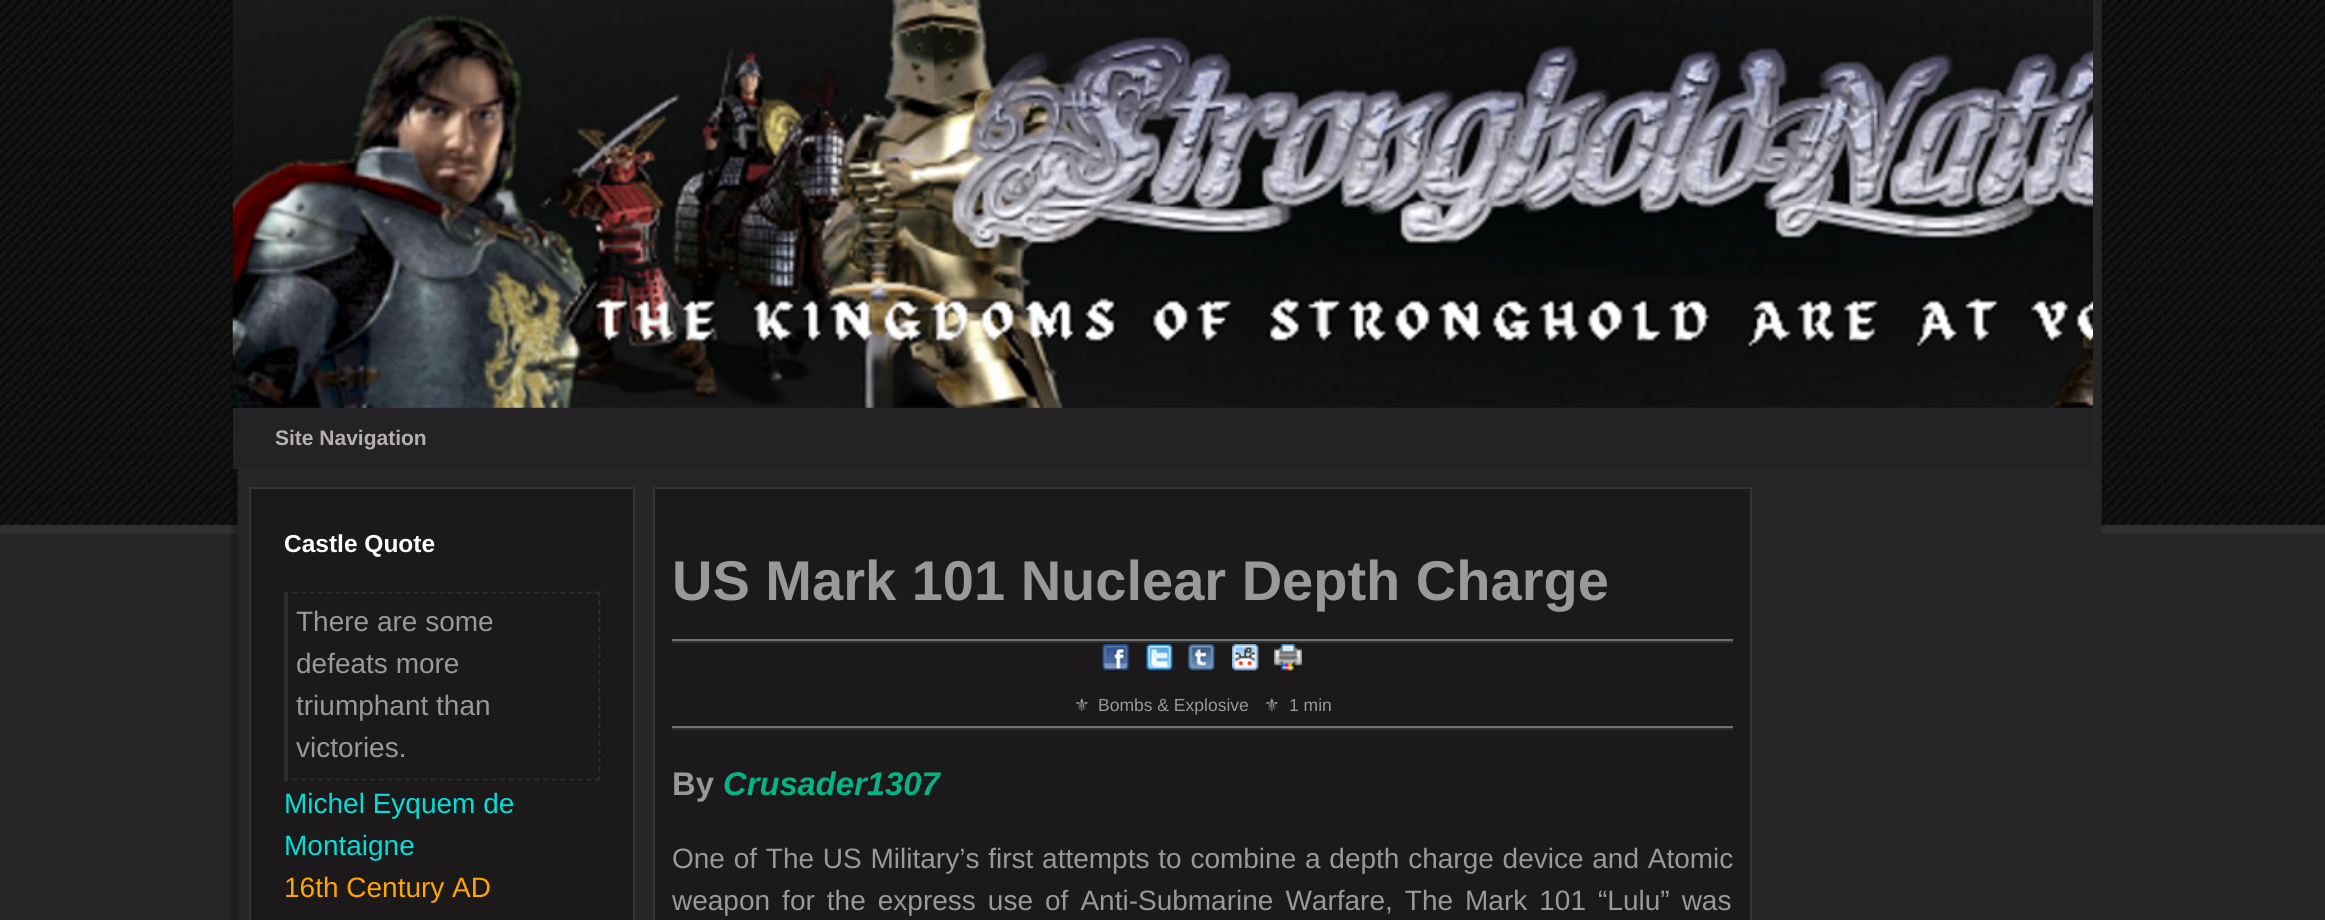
#include <cairo/cairo.h>
#include <math.h>
#include <stddef.h>


static void draw_spaced(cairo_t *cr, double x, double y, const char *s, double letter, double word) {
  cairo_move_to(cr, x, y);
  while (*s) {
    char ch[5] = {0};
    int n = 0;
    do ch[n++] = *s++; while ((*s & 0xC0) == 0x80);
    cairo_show_text(cr, ch);
    cairo_rel_move_to(cr, letter + word * (*ch == ' '), 0);
  }
}

static void draw_image(cairo_t *cr, const char *path, double x, double y, double w, double h) {
  cairo_surface_t *image = cairo_image_surface_create_from_png(path);
  cairo_save(cr);
  cairo_set_source_surface(cr, image, x, y);
  cairo_rectangle(cr, x, y, w, h);
  cairo_fill(cr);
  cairo_restore(cr);
  cairo_surface_destroy(image);
}

static void draw(cairo_t *cr) {
  cairo_set_source_rgb(cr, 39 / 255.0, 37 / 255.0, 37 / 255.0);
  cairo_paint(cr);
  draw_image(cr, "images/1.png", 0, 0, 2325, 534);
  draw_image(cr, "images/2.png", 230, 0, 1872, 920);
  draw_image(cr, "images/3.png", 232, 0, 1861, 408);
  cairo_set_source_rgb(cr, 36 / 255.0, 34 / 255.0, 36 / 255.0);
  cairo_rectangle(cr, 233, 408, 1860, 61);
  cairo_fill(cr);
  cairo_set_source_rgb(cr, 27 / 255.0, 25 / 255.0, 25 / 255.0);
  cairo_rectangle(cr, 250, 488, 384, 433);
  cairo_fill_preserve(cr);
  cairo_set_source_rgb(cr, 54 / 255.0, 52 / 255.0, 52 / 255.0);
  cairo_stroke(cr);
  cairo_new_path(cr);
  cairo_move_to(cr, 283.5, 592.5);
  cairo_line_to(cr, 600, 592.5);
  cairo_set_source_rgb(cr, 46 / 255.0, 46 / 255.0, 46 / 255.0);
  cairo_set_line_width(cr, 1.8);
  cairo_set_dash(cr, (double[]){5.25, 3.4}, 2, 0);
  cairo_stroke(cr);
  cairo_new_path(cr);
  cairo_move_to(cr, 599.5, 591.5);
  cairo_line_to(cr, 599.5, 780.5);
  cairo_set_dash(cr, (double[]){5.25, 3.5}, 2, 0);
  cairo_stroke(cr);
  cairo_new_path(cr);
  cairo_move_to(cr, 283.5, 779.5);
  cairo_line_to(cr, 600, 779.5);
  cairo_set_dash(cr, (double[]){5.25, 3.4}, 2, 0);
  cairo_stroke(cr);
  cairo_rectangle(cr, 284, 592, 4, 189);
  cairo_fill(cr);
  cairo_set_source_rgb(cr, 27 / 255.0, 25 / 255.0, 25 / 255.0);
  cairo_rectangle(cr, 654, 488, 1097, 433);
  cairo_fill_preserve(cr);
  cairo_set_source_rgb(cr, 54 / 255.0, 52 / 255.0, 52 / 255.0);
  cairo_set_line_width(cr, 2);
  cairo_set_dash(cr, NULL, 0, 0);
  cairo_stroke(cr);
  cairo_set_source_rgb(cr, 113 / 255.0, 113 / 255.0, 113 / 255.0);
  cairo_rectangle(cr, 672, 639, 1061, 2);
  cairo_fill(cr);
  cairo_set_source_rgb(cr, 49 / 255.0, 48 / 255.0, 48 / 255.0);
  cairo_rectangle(cr, 672, 641, 1061, 2);
  cairo_fill(cr);
  draw_image(cr, "images/4.png", 1102, 644, 28, 28);
  draw_image(cr, "images/5.png", 1146, 644, 27, 28);
  draw_image(cr, "images/6.png", 1188, 644, 27, 28);
  draw_image(cr, "images/7.png", 1232, 644, 27, 28);
  draw_image(cr, "images/8.png", 1274, 644, 28, 28);
  cairo_set_source_rgb(cr, 113 / 255.0, 113 / 255.0, 113 / 255.0);
  cairo_rectangle(cr, 672, 726, 1061, 2);
  cairo_fill(cr);
  cairo_set_source_rgb(cr, 49 / 255.0, 48 / 255.0, 48 / 255.0);
  cairo_rectangle(cr, 672, 728, 1061, 2);
  cairo_fill(cr);
  cairo_select_font_face(cr, "Liberation Sans", CAIRO_FONT_SLANT_NORMAL, CAIRO_FONT_WEIGHT_BOLD);
  cairo_set_font_size(cr, 21);
  cairo_set_source_rgb(cr, 181 / 255.0, 177 / 255.0, 177 / 255.0);
  cairo_move_to(cr, 275, 445);
  cairo_show_text(cr, "Site Navigation");
  cairo_set_font_size(cr, 24.5);
  cairo_set_source_rgb(cr, 1, 1, 1);
  cairo_move_to(cr, 284, 552);
  cairo_show_text(cr, "Castle Quote");
  cairo_select_font_face(cr, "Liberation Sans", CAIRO_FONT_SLANT_NORMAL, CAIRO_FONT_WEIGHT_NORMAL);
  cairo_set_font_size(cr, 28);
  cairo_set_source_rgb(cr, 153 / 255.0, 153 / 255.0, 153 / 255.0);
  cairo_move_to(cr, 296, 631);
  cairo_show_text(cr, "There are some");
  cairo_move_to(cr, 296, 673);
  cairo_show_text(cr, "defeats more");
  cairo_move_to(cr, 296, 715);
  cairo_show_text(cr, "triumphant than");
  cairo_move_to(cr, 296, 757);
  cairo_show_text(cr, "victories.");
  cairo_set_source_rgb(cr, 1 / 255.0, 223 / 255.0, 215 / 255.0);
  cairo_move_to(cr, 284, 813);
  cairo_show_text(cr, "Michel Eyquem de");
  cairo_move_to(cr, 284, 855);
  cairo_show_text(cr, "Montaigne");
  cairo_set_source_rgb(cr, 1, 165 / 255.0, 0);
  cairo_move_to(cr, 284, 897);
  cairo_show_text(cr, "16th Century AD");
  cairo_select_font_face(cr, "Liberation Sans", CAIRO_FONT_SLANT_NORMAL, CAIRO_FONT_WEIGHT_BOLD);
  cairo_set_font_size(cr, 56);
  cairo_set_source_rgb(cr, 153 / 255.0, 153 / 255.0, 153 / 255.0);
  cairo_move_to(cr, 672, 600);
  cairo_show_text(cr, "US Mark 101 Nuclear Depth Charge");
  cairo_select_font_face(cr, "DejaVu Sans", CAIRO_FONT_SLANT_NORMAL, CAIRO_FONT_WEIGHT_NORMAL);
  cairo_set_font_size(cr, 17.5);
  cairo_move_to(cr, 1074, 711);
  cairo_show_text(cr, "⚜");
  cairo_select_font_face(cr, "Liberation Sans", CAIRO_FONT_SLANT_NORMAL, CAIRO_FONT_WEIGHT_NORMAL);
  cairo_move_to(cr, 1098, 711);
  cairo_show_text(cr, "Bombs & Explosive");
  cairo_select_font_face(cr, "DejaVu Sans", CAIRO_FONT_SLANT_NORMAL, CAIRO_FONT_WEIGHT_NORMAL);
  cairo_move_to(cr, 1264, 711);
  cairo_show_text(cr, "⚜");
  cairo_select_font_face(cr, "Liberation Sans", CAIRO_FONT_SLANT_NORMAL, CAIRO_FONT_WEIGHT_NORMAL);
  cairo_move_to(cr, 1289, 711);
  cairo_show_text(cr, "1 min");
  cairo_select_font_face(cr, "Liberation Sans", CAIRO_FONT_SLANT_NORMAL, CAIRO_FONT_WEIGHT_BOLD);
  cairo_set_font_size(cr, 32.75);
  cairo_move_to(cr, 672, 795);
  cairo_show_text(cr, "By");
  cairo_select_font_face(cr, "Liberation Sans", CAIRO_FONT_SLANT_ITALIC, CAIRO_FONT_WEIGHT_BOLD);
  cairo_set_source_rgb(cr, 4 / 255.0, 180 / 255.0, 134 / 255.0);
  cairo_move_to(cr, 723, 795);
  cairo_show_text(cr, "Crusader1307");
  cairo_select_font_face(cr, "Liberation Sans", CAIRO_FONT_SLANT_NORMAL, CAIRO_FONT_WEIGHT_NORMAL);
  cairo_set_font_size(cr, 28);
  cairo_set_source_rgb(cr, 153 / 255.0, 153 / 255.0, 153 / 255.0);
  draw_spaced(cr, 672, 868, "One of The US Military’s first attempts to combine a depth charge device and Atomic", 0, 1);
  draw_spaced(cr, 672, 910, "weapon for the express use of Anti-Submarine Warfare, The Mark 101 “Lulu” was", 0, 4.25);
}

int main(void) {
  cairo_surface_t *surface = cairo_image_surface_create(CAIRO_FORMAT_RGB24, 2325, 920);
  cairo_t *cr = cairo_create(surface);
  cairo_font_options_t *options = cairo_font_options_create();
  cairo_font_options_set_hint_metrics(options, CAIRO_HINT_METRICS_OFF);
  cairo_font_options_set_hint_style(options, CAIRO_HINT_STYLE_NONE);
  cairo_set_font_options(cr, options);
  cairo_set_miter_limit(cr, 4);
  draw(cr);
  cairo_surface_write_to_png(surface, "out.png");
  cairo_font_options_destroy(options);
  cairo_destroy(cr);
  cairo_surface_destroy(surface);
  return 0;
}
